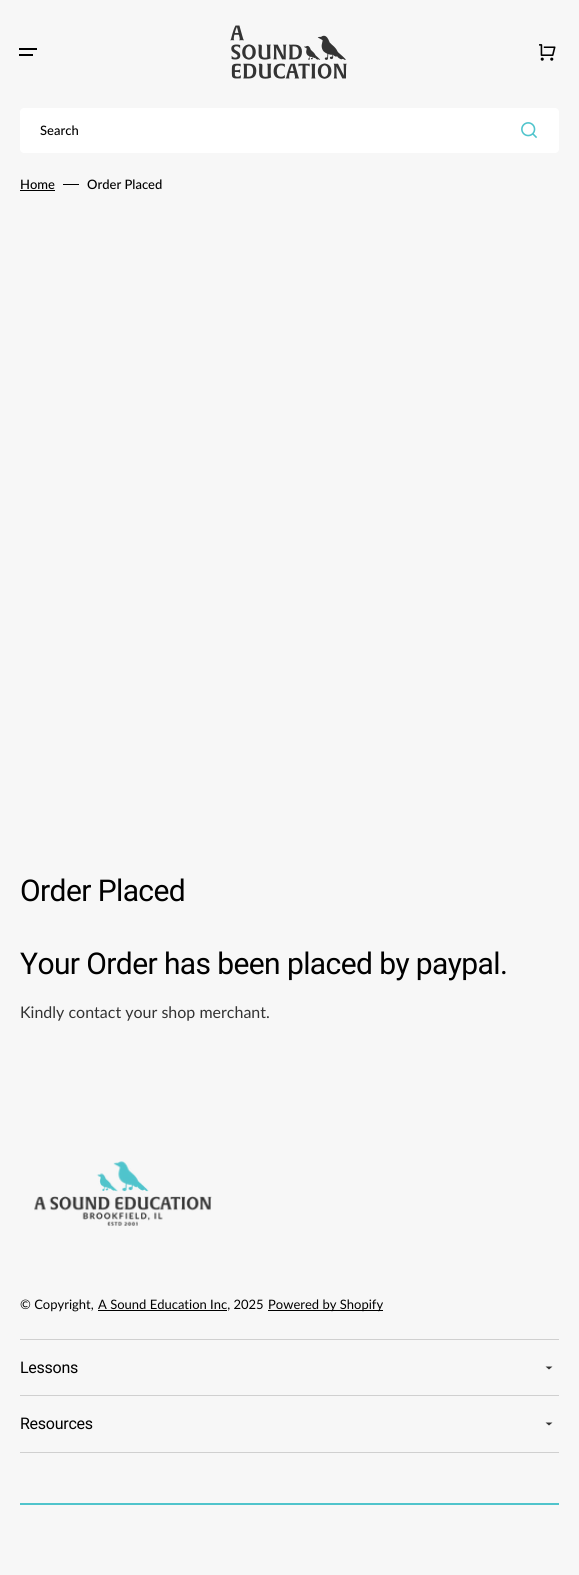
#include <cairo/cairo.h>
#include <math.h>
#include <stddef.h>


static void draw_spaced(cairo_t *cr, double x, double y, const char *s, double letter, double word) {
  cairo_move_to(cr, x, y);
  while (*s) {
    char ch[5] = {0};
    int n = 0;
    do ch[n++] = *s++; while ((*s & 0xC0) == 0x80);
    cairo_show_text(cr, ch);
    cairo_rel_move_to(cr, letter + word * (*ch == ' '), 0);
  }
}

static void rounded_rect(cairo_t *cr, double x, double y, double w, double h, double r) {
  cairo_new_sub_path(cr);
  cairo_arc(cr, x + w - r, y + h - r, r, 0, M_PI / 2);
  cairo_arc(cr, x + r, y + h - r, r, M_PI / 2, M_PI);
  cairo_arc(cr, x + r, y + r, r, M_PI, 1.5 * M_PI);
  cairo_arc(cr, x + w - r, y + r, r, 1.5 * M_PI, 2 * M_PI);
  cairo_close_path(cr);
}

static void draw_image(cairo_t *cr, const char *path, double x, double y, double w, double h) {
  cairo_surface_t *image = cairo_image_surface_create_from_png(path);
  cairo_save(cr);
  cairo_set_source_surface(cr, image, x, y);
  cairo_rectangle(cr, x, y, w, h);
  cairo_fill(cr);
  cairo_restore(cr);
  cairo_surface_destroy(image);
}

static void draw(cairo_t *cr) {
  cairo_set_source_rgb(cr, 247 / 255.0, 247 / 255.0, 247 / 255.0);
  cairo_paint(cr);
  cairo_set_source_rgb(cr, 0, 0, 0);
  cairo_rectangle(cr, 19, 48, 18, 2);
  cairo_fill(cr);
  cairo_rectangle(cr, 19, 54, 14, 2);
  cairo_fill(cr);
  draw_image(cr, "images/1.png", 230, 25, 117, 54);
  draw_image(cr, "images/2.png", 539, 44, 17, 17);
  cairo_set_source_rgb(cr, 1, 1, 1);
  rounded_rect(cr, 20, 108, 539, 45, 4);
  cairo_fill(cr);
  draw_image(cr, "images/3.png", 521, 122, 17, 17);
  cairo_set_source_rgb(cr, 0, 0, 0);
  cairo_rectangle(cr, 20, 190, 35, 1);
  cairo_fill(cr);
  cairo_rectangle(cr, 63, 184, 16, 1);
  cairo_fill(cr);
  draw_image(cr, "images/4.png", 34, 1161, 178, 65);
  cairo_rectangle(cr, 98, 1310, 129, 1);
  cairo_fill(cr);
  cairo_rectangle(cr, 268, 1310, 115, 1);
  cairo_fill(cr);
  cairo_set_source_rgb(cr, 208 / 255.0, 208 / 255.0, 208 / 255.0);
  cairo_rectangle(cr, 20, 1339, 539, 1);
  cairo_fill(cr);
  cairo_rectangle(cr, 20, 1395, 539, 1);
  cairo_fill(cr);
  cairo_set_source_rgb(cr, 51 / 255.0, 51 / 255.0, 51 / 255.0);
  cairo_new_path(cr);
  cairo_move_to(cr, 549, 1369.5);
  cairo_line_to(cr, 545.5, 1366.5);
  cairo_line_to(cr, 552.5, 1366.5);
  cairo_close_path(cr);
  cairo_fill(cr);
  cairo_set_source_rgb(cr, 208 / 255.0, 208 / 255.0, 208 / 255.0);
  cairo_rectangle(cr, 20, 1452, 539, 1);
  cairo_fill(cr);
  cairo_set_source_rgb(cr, 51 / 255.0, 51 / 255.0, 51 / 255.0);
  cairo_new_path(cr);
  cairo_move_to(cr, 549, 1425.5);
  cairo_line_to(cr, 545.5, 1422.5);
  cairo_line_to(cr, 552.5, 1422.5);
  cairo_close_path(cr);
  cairo_fill(cr);
  cairo_set_source_rgb(cr, 80 / 255.0, 196 / 255.0, 204 / 255.0);
  cairo_rectangle(cr, 20, 1503, 539, 2);
  cairo_fill(cr);
  cairo_select_font_face(cr, "Lato Medium", CAIRO_FONT_SLANT_NORMAL, CAIRO_FONT_WEIGHT_NORMAL);
  cairo_set_font_size(cr, 13);
  cairo_set_source_rgb(cr, 0, 0, 0);
  cairo_move_to(cr, 40, 135);
  cairo_show_text(cr, "Search");
  cairo_move_to(cr, 20, 189);
  cairo_show_text(cr, "Home");
  cairo_move_to(cr, 87, 189);
  cairo_show_text(cr, "Order Placed");
  cairo_select_font_face(cr, "Roboto", CAIRO_FONT_SLANT_NORMAL, CAIRO_FONT_WEIGHT_NORMAL);
  cairo_set_font_size(cr, 30);
  draw_spaced(cr, 20, 901, "Order Placed", -0.6, 0);
  draw_spaced(cr, 20, 974, "Your Order has been placed by paypal.", -0.6, 0);
  cairo_select_font_face(cr, "Lato", CAIRO_FONT_SLANT_NORMAL, CAIRO_FONT_WEIGHT_NORMAL);
  cairo_set_font_size(cr, 16);
  cairo_set_source_rgb(cr, 51 / 255.0, 51 / 255.0, 51 / 255.0);
  cairo_move_to(cr, 20, 1018);
  cairo_show_text(cr, "Kindly contact your shop merchant.");
  cairo_set_font_size(cr, 13);
  cairo_set_source_rgb(cr, 0, 0, 0);
  cairo_move_to(cr, 20, 1309);
  cairo_show_text(cr, "© Copyright,");
  cairo_move_to(cr, 98, 1309);
  cairo_show_text(cr, "A Sound Education Inc, 2025");
  cairo_move_to(cr, 268, 1309);
  cairo_show_text(cr, "Powered by Shopify");
  cairo_select_font_face(cr, "Roboto", CAIRO_FONT_SLANT_NORMAL, CAIRO_FONT_WEIGHT_NORMAL);
  cairo_set_font_size(cr, 16);
  draw_spaced(cr, 20, 1373, "Lessons", -0.25, 0);
  draw_spaced(cr, 20, 1429, "Resources", -0.25, 0);
}

int main(void) {
  cairo_surface_t *surface = cairo_image_surface_create(CAIRO_FORMAT_RGB24, 579, 1575);
  cairo_t *cr = cairo_create(surface);
  cairo_font_options_t *options = cairo_font_options_create();
  cairo_font_options_set_hint_metrics(options, CAIRO_HINT_METRICS_OFF);
  cairo_font_options_set_hint_style(options, CAIRO_HINT_STYLE_NONE);
  cairo_set_font_options(cr, options);
  cairo_set_miter_limit(cr, 4);
  draw(cr);
  cairo_surface_write_to_png(surface, "out.png");
  cairo_font_options_destroy(options);
  cairo_destroy(cr);
  cairo_surface_destroy(surface);
  return 0;
}
